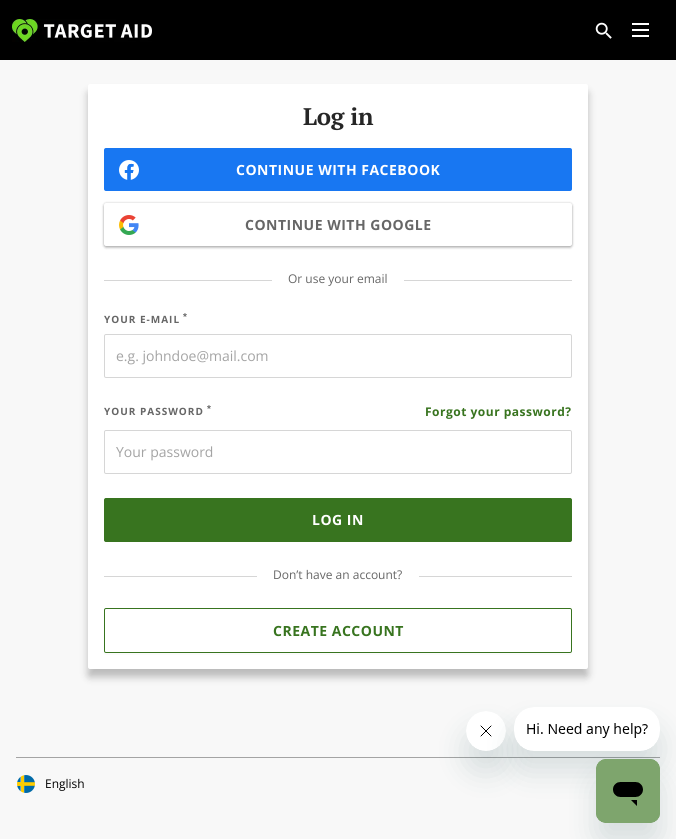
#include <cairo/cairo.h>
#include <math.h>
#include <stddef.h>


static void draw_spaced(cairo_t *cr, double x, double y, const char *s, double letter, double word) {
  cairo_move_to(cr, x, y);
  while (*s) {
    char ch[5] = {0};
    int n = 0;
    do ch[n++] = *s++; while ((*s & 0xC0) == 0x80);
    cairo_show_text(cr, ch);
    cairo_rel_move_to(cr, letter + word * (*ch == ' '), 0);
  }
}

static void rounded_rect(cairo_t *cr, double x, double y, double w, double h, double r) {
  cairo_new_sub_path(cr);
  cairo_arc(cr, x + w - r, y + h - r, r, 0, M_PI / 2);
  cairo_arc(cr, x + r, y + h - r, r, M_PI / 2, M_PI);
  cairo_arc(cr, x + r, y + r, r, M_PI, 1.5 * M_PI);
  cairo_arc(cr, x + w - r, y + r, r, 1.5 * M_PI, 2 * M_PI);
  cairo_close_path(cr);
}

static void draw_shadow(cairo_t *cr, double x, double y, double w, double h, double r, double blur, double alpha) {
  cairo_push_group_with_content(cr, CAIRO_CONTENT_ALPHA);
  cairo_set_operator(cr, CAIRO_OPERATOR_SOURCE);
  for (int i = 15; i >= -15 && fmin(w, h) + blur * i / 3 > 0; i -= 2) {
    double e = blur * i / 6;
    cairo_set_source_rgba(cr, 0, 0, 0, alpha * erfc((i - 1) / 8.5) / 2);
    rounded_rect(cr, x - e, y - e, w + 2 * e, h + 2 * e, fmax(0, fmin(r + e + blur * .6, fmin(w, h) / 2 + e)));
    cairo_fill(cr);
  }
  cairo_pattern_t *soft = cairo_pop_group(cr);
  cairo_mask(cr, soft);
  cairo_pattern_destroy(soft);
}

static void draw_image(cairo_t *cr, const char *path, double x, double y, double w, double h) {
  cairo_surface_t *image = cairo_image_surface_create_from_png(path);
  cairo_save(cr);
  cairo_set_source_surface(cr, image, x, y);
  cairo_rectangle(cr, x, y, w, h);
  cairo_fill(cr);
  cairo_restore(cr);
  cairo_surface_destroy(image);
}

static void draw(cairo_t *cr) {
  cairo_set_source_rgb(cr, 248 / 255.0, 248 / 255.0, 248 / 255.0);
  cairo_paint(cr);
  cairo_set_source_rgb(cr, 0, 0, 0);
  cairo_rectangle(cr, 0, 0, 676, 60);
  cairo_fill(cr);
  draw_image(cr, "images/1.png", 12, 19, 140, 23);
  draw_image(cr, "images/2.png", 595, 22, 17, 17);
  cairo_set_source_rgb(cr, 1, 1, 1);
  cairo_rectangle(cr, 632, 23, 17, 2);
  cairo_fill(cr);
  cairo_rectangle(cr, 632, 29, 17, 2);
  cairo_fill(cr);
  cairo_rectangle(cr, 632, 35, 17, 2);
  cairo_fill(cr);
  cairo_set_source_rgb(cr, 0, 0, 0);
  draw_shadow(cr, 88, 92, 500, 585, 2, 4, 0.25);
  cairo_set_source_rgb(cr, 1, 1, 1);
  rounded_rect(cr, 88, 84, 500, 585, 2);
  cairo_fill(cr);
  cairo_set_source_rgb(cr, 24 / 255.0, 119 / 255.0, 242 / 255.0);
  rounded_rect(cr, 104, 148, 468, 43, 2);
  cairo_fill(cr);
  draw_image(cr, "images/3.png", 119, 160, 20, 20);
  cairo_set_source_rgb(cr, 0, 0, 0);
  draw_shadow(cr, 104, 204, 468, 43, 2, 1.5, 0.2);
  draw_shadow(cr, 104, 205, 468, 43, 2, 1, 0.12);
  draw_shadow(cr, 104, 203, 468, 43, 2, 1, 0.14);
  cairo_set_source_rgb(cr, 1, 1, 1);
  rounded_rect(cr, 104, 203, 468, 43, 2);
  cairo_fill(cr);
  draw_image(cr, "images/4.png", 119, 215, 20, 20);
  cairo_set_source_rgb(cr, 214 / 255.0, 214 / 255.0, 214 / 255.0);
  cairo_rectangle(cr, 104, 280, 468, 1);
  cairo_fill(cr);
  cairo_set_source_rgb(cr, 1, 1, 1);
  cairo_rectangle(cr, 272, 280, 132, 1);
  cairo_fill(cr);
  rounded_rect(cr, 104.5, 334.5, 467, 43, 1.5);
  cairo_set_source_rgb(cr, 214 / 255.0, 214 / 255.0, 214 / 255.0);
  cairo_set_line_width(cr, 1);
  cairo_stroke(cr);
  rounded_rect(cr, 104.5, 430.5, 467, 43, 1.5);
  cairo_stroke(cr);
  cairo_set_source_rgb(cr, 56 / 255.0, 116 / 255.0, 31 / 255.0);
  rounded_rect(cr, 104.5, 498.5, 467, 43, 1.5);
  cairo_fill_preserve(cr);
  cairo_stroke(cr);
  cairo_set_source_rgb(cr, 214 / 255.0, 214 / 255.0, 214 / 255.0);
  cairo_rectangle(cr, 104, 576, 468, 1);
  cairo_fill(cr);
  cairo_set_source_rgb(cr, 1, 1, 1);
  cairo_rectangle(cr, 257, 576, 162, 1);
  cairo_fill(cr);
  cairo_set_source_rgb(cr, 251 / 255.0, 251 / 255.0, 251 / 255.0);
  cairo_new_path(cr);
  cairo_move_to(cr, 104, 651);
  cairo_line_to(cr, 104, 654);
  cairo_line_to(cr, 105, 655);
  cairo_line_to(cr, 570, 655);
  cairo_curve_to(cr, 572, 655, 572, 653, 572, 651);
  cairo_curve_to(cr, 572, 652, 571, 653, 570, 653);
  cairo_line_to(cr, 106, 653);
  cairo_curve_to(cr, 105, 653, 104, 652, 104, 651);
  cairo_close_path(cr);
  cairo_fill(cr);
  rounded_rect(cr, 104.5, 608.5, 467, 44, 1.5);
  cairo_set_source_rgb(cr, 56 / 255.0, 116 / 255.0, 31 / 255.0);
  cairo_stroke(cr);
  cairo_set_source_rgb(cr, 164 / 255.0, 164 / 255.0, 164 / 255.0);
  cairo_rectangle(cr, 16, 757, 644, 1);
  cairo_fill(cr);
  draw_image(cr, "images/5.png", 17, 775, 18, 18);
  cairo_set_source_rgb(cr, 23 / 255.0, 73 / 255.0, 77 / 255.0);
  draw_shadow(cr, 466, 731, 40, 40, 20, 15, 0.15);
  draw_image(cr, "images/7.png", 466, 711, 40, 40);
  draw_shadow(cr, 514, 727, 146, 44, 20, 15, 0.15);
  draw_image(cr, "images/6.png", 514, 707, 146, 44);
  draw_shadow(cr, 596, 779, 64, 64, 10, 15, 0.15);
  draw_image(cr, "images/8.png", 596, 759, 64, 64);
  cairo_select_font_face(cr, "PT Serif", CAIRO_FONT_SLANT_NORMAL, CAIRO_FONT_WEIGHT_BOLD);
  cairo_set_font_size(cr, 24);
  cairo_set_source_rgb(cr, 38 / 255.0, 38 / 255.0, 38 / 255.0);
  draw_spaced(cr, 303, 125, "Log in", -0.25, 0);
  cairo_select_font_face(cr, "Open Sans", CAIRO_FONT_SLANT_NORMAL, CAIRO_FONT_WEIGHT_BOLD);
  cairo_set_font_size(cr, 14);
  cairo_set_source_rgb(cr, 1, 1, 1);
  draw_spaced(cr, 236, 175, "CONTINUE WITH FACEBOOK", 0.5, 0);
  cairo_set_source_rgb(cr, 102 / 255.0, 102 / 255.0, 102 / 255.0);
  draw_spaced(cr, 245, 230, "CONTINUE WITH GOOGLE", 0.5, 0);
  cairo_select_font_face(cr, "Open Sans", CAIRO_FONT_SLANT_NORMAL, CAIRO_FONT_WEIGHT_NORMAL);
  cairo_set_font_size(cr, 12);
  cairo_move_to(cr, 288, 283);
  cairo_show_text(cr, "Or use your email");
  cairo_select_font_face(cr, "Open Sans", CAIRO_FONT_SLANT_NORMAL, CAIRO_FONT_WEIGHT_BOLD);
  cairo_set_font_size(cr, 10);
  draw_spaced(cr, 104, 323, "YOUR E-MAIL", 1, 0);
  cairo_select_font_face(cr, "Liberation Sans", CAIRO_FONT_SLANT_NORMAL, CAIRO_FONT_WEIGHT_BOLD);
  draw_spaced(cr, 183, 320, "*", 1, 0);
  cairo_select_font_face(cr, "Open Sans", CAIRO_FONT_SLANT_NORMAL, CAIRO_FONT_WEIGHT_NORMAL);
  cairo_set_font_size(cr, 14);
  cairo_set_source_rgb(cr, 164 / 255.0, 164 / 255.0, 164 / 255.0);
  cairo_move_to(cr, 116, 361);
  cairo_show_text(cr, "e.g. johndoe@mail.com");
  cairo_select_font_face(cr, "Open Sans", CAIRO_FONT_SLANT_NORMAL, CAIRO_FONT_WEIGHT_BOLD);
  cairo_set_font_size(cr, 10);
  cairo_set_source_rgb(cr, 102 / 255.0, 102 / 255.0, 102 / 255.0);
  draw_spaced(cr, 104, 415, "YOUR PASSWORD", 1, 0);
  cairo_select_font_face(cr, "Liberation Sans", CAIRO_FONT_SLANT_NORMAL, CAIRO_FONT_WEIGHT_BOLD);
  draw_spaced(cr, 207, 412, "*", 1, 0);
  cairo_select_font_face(cr, "Open Sans", CAIRO_FONT_SLANT_NORMAL, CAIRO_FONT_WEIGHT_BOLD);
  cairo_set_font_size(cr, 12);
  cairo_set_source_rgb(cr, 56 / 255.0, 116 / 255.0, 31 / 255.0);
  draw_spaced(cr, 425, 416, "Forgot your password?", 0.5, 0);
  cairo_select_font_face(cr, "Open Sans", CAIRO_FONT_SLANT_NORMAL, CAIRO_FONT_WEIGHT_NORMAL);
  cairo_set_font_size(cr, 14);
  cairo_set_source_rgb(cr, 164 / 255.0, 164 / 255.0, 164 / 255.0);
  cairo_move_to(cr, 116, 457);
  cairo_show_text(cr, "Your password");
  cairo_select_font_face(cr, "Open Sans", CAIRO_FONT_SLANT_NORMAL, CAIRO_FONT_WEIGHT_BOLD);
  cairo_set_source_rgb(cr, 1, 1, 1);
  draw_spaced(cr, 312, 525, "LOG IN", 0.5, 0);
  cairo_select_font_face(cr, "Open Sans", CAIRO_FONT_SLANT_NORMAL, CAIRO_FONT_WEIGHT_NORMAL);
  cairo_set_font_size(cr, 12);
  cairo_set_source_rgb(cr, 102 / 255.0, 102 / 255.0, 102 / 255.0);
  cairo_move_to(cr, 273, 579);
  cairo_show_text(cr, "Don’t have an account?");
  cairo_select_font_face(cr, "Open Sans", CAIRO_FONT_SLANT_NORMAL, CAIRO_FONT_WEIGHT_BOLD);
  cairo_set_font_size(cr, 14);
  cairo_set_source_rgb(cr, 56 / 255.0, 116 / 255.0, 31 / 255.0);
  draw_spaced(cr, 273, 636, "CREATE ACCOUNT", 0.5, 0);
  cairo_select_font_face(cr, "Open Sans", CAIRO_FONT_SLANT_NORMAL, CAIRO_FONT_WEIGHT_NORMAL);
  cairo_set_font_size(cr, 12);
  cairo_set_source_rgb(cr, 0, 0, 0);
  cairo_move_to(cr, 45, 788);
  cairo_show_text(cr, "English");
}

int main(void) {
  cairo_surface_t *surface = cairo_image_surface_create(CAIRO_FORMAT_RGB24, 676, 839);
  cairo_t *cr = cairo_create(surface);
  cairo_font_options_t *options = cairo_font_options_create();
  cairo_font_options_set_hint_metrics(options, CAIRO_HINT_METRICS_OFF);
  cairo_font_options_set_hint_style(options, CAIRO_HINT_STYLE_NONE);
  cairo_set_font_options(cr, options);
  cairo_set_miter_limit(cr, 4);
  draw(cr);
  cairo_surface_write_to_png(surface, "out.png");
  cairo_font_options_destroy(options);
  cairo_destroy(cr);
  cairo_surface_destroy(surface);
  return 0;
}
